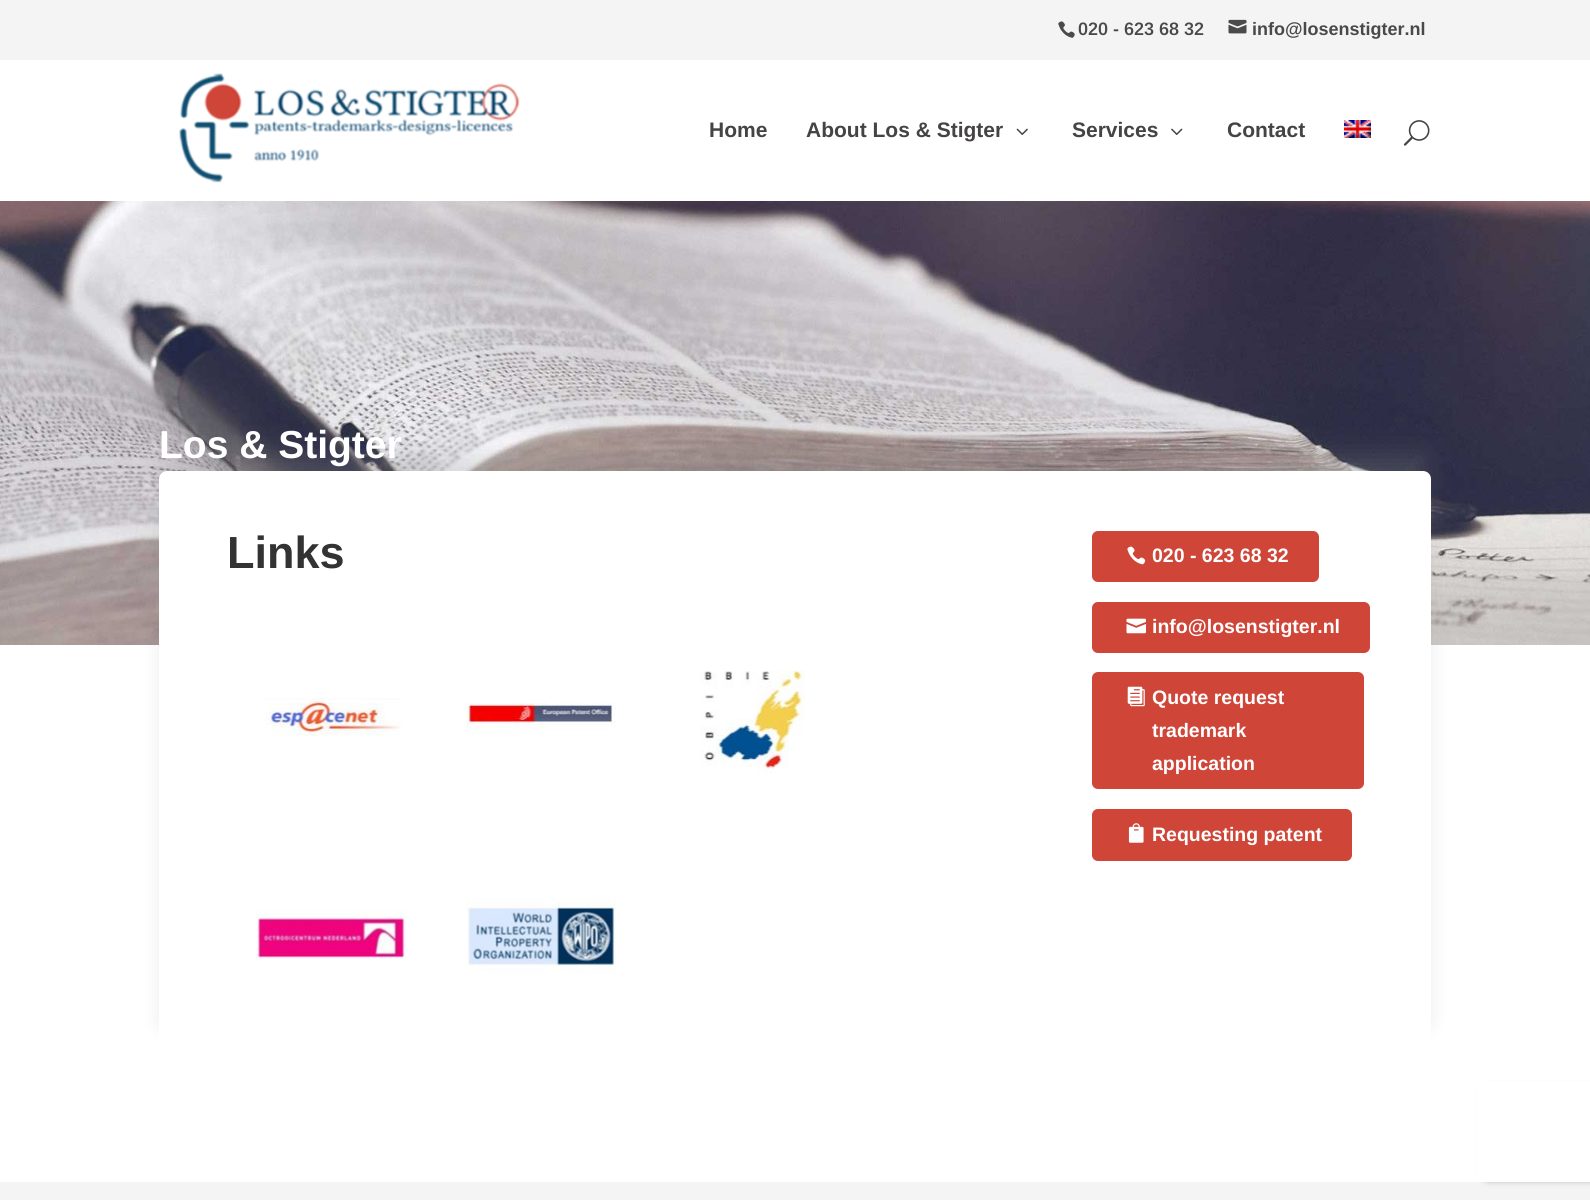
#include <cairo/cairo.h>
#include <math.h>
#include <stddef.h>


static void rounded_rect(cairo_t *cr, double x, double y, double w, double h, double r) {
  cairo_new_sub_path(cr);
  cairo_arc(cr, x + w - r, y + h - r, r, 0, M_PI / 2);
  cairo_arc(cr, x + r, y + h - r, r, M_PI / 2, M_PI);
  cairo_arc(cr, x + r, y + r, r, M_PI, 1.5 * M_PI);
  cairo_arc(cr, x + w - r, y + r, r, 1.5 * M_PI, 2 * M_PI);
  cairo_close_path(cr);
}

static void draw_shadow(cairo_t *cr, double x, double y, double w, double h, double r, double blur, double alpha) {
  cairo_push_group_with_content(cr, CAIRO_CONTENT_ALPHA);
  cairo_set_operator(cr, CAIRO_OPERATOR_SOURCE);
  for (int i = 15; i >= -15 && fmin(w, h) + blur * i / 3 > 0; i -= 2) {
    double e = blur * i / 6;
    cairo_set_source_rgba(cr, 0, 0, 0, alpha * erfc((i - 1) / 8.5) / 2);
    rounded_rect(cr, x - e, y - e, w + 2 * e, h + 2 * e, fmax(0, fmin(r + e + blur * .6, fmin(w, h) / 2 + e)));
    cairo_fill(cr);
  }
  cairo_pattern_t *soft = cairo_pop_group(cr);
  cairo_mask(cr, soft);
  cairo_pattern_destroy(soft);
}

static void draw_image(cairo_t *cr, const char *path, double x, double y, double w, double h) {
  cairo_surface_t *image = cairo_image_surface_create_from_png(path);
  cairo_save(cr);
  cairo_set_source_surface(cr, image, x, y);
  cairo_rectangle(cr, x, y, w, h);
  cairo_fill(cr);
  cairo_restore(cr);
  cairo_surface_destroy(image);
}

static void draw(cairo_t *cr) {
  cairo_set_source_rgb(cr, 1, 1, 1);
  cairo_paint(cr);
  cairo_set_source_rgb(cr, 244 / 255.0, 244 / 255.0, 244 / 255.0);
  cairo_rectangle(cr, 0, 0, 1590, 60);
  cairo_fill(cr);
  draw_image(cr, "images/1.png", 1058, 21, 17, 17);
  draw_image(cr, "images/2.png", 1228, 19, 19, 15);
  draw_image(cr, "images/3.png", 179, 73, 341, 110);
  draw_image(cr, "images/4.png", 1016, 128, 12, 7);
  draw_image(cr, "images/5.png", 1171, 128, 12, 7);
  draw_image(cr, "images/6.png", 1344, 120, 27, 18);
  draw_image(cr, "images/7.png", 1403, 120, 27, 26);
  draw_image(cr, "images/8.png", 0, 201, 1590, 444);
  cairo_set_source_rgb(cr, 137 / 255.0, 137 / 255.0, 137 / 255.0);
  draw_shadow(cr, 168, 456, 1254, 566, 0, 13.5, 0.3);
  cairo_set_source_rgb(cr, 1, 1, 1);
  rounded_rect(cr, 159, 471, 1272, 584, 8);
  cairo_fill(cr);
  draw_image(cr, "images/9.png", 257, 698, 144, 38);
  draw_image(cr, "images/10.png", 466, 703, 151, 32);
  draw_image(cr, "images/11.png", 700, 670, 105, 103);
  draw_image(cr, "images/12.png", 256, 910, 151, 49);
  draw_image(cr, "images/13.png", 466, 898, 151, 76);
  cairo_set_source_rgb(cr, 207 / 255.0, 69 / 255.0, 56 / 255.0);
  rounded_rect(cr, 1092, 531, 227, 51, 6);
  cairo_fill(cr);
  draw_image(cr, "images/14.png", 1127, 546, 19, 19);
  rounded_rect(cr, 1092, 602, 278, 51, 6);
  cairo_fill(cr);
  draw_image(cr, "images/15.png", 1126, 618, 20, 16);
  rounded_rect(cr, 1092, 672, 272, 117, 6);
  cairo_fill(cr);
  draw_image(cr, "images/16.png", 1127, 686, 18, 21);
  rounded_rect(cr, 1092, 809, 260, 52, 6);
  cairo_fill(cr);
  draw_image(cr, "images/17.png", 1128, 823, 16, 20);
  cairo_set_source_rgb(cr, 244 / 255.0, 244 / 255.0, 244 / 255.0);
  cairo_rectangle(cr, 0, 1182, 1590, 18);
  cairo_fill(cr);
  cairo_set_source_rgb(cr, 128 / 255.0, 128 / 255.0, 128 / 255.0);
  draw_shadow(cr, 1485, 1089, 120, 90, 3, 4, 1);
  cairo_set_source_rgb(cr, 1, 1, 1);
  cairo_rectangle(cr, 1477, 1081, 113, 101);
  cairo_fill(cr);
  cairo_select_font_face(cr, "Arimo SemiBold", CAIRO_FONT_SLANT_NORMAL, CAIRO_FONT_WEIGHT_NORMAL);
  cairo_set_font_size(cr, 18);
  cairo_set_source_rgb(cr, 73 / 255.0, 73 / 255.0, 73 / 255.0);
  cairo_move_to(cr, 1078, 35);
  cairo_show_text(cr, "020 - 623 68 32");
  cairo_select_font_face(cr, "Arimo", CAIRO_FONT_SLANT_NORMAL, CAIRO_FONT_WEIGHT_BOLD);
  cairo_move_to(cr, 1252, 35);
  cairo_show_text(cr, "info@losenstigter.nl");
  cairo_set_font_size(cr, 21);
  cairo_set_source_rgb(cr, 69 / 255.0, 67 / 255.0, 67 / 255.0);
  cairo_move_to(cr, 709, 137);
  cairo_show_text(cr, "Home");
  cairo_move_to(cr, 806, 137);
  cairo_show_text(cr, "About Los & Stigter");
  cairo_move_to(cr, 1072, 137);
  cairo_show_text(cr, "Services");
  cairo_move_to(cr, 1227, 137);
  cairo_show_text(cr, "Contact");
  cairo_set_font_size(cr, 39);
  cairo_set_source_rgb(cr, 1, 1, 1);
  cairo_move_to(cr, 159, 458);
  cairo_show_text(cr, "Los & Stigter");
  cairo_set_font_size(cr, 45);
  cairo_set_source_rgb(cr, 51 / 255.0, 51 / 255.0, 51 / 255.0);
  cairo_move_to(cr, 227, 568);
  cairo_show_text(cr, "Links");
  cairo_set_font_size(cr, 19.5);
  cairo_set_source_rgb(cr, 1, 1, 1);
  cairo_move_to(cr, 1152, 562);
  cairo_show_text(cr, "020 - 623 68 32");
  cairo_move_to(cr, 1152, 633);
  cairo_show_text(cr, "info@losenstigter.nl");
  cairo_move_to(cr, 1152, 704);
  cairo_show_text(cr, "Quote request");
  cairo_move_to(cr, 1152, 737);
  cairo_show_text(cr, "trademark");
  cairo_move_to(cr, 1152, 770);
  cairo_show_text(cr, "application");
  cairo_move_to(cr, 1152, 841);
  cairo_show_text(cr, "Requesting patent");
}

int main(void) {
  cairo_surface_t *surface = cairo_image_surface_create(CAIRO_FORMAT_RGB24, 1590, 1200);
  cairo_t *cr = cairo_create(surface);
  cairo_font_options_t *options = cairo_font_options_create();
  cairo_font_options_set_hint_metrics(options, CAIRO_HINT_METRICS_OFF);
  cairo_font_options_set_hint_style(options, CAIRO_HINT_STYLE_NONE);
  cairo_set_font_options(cr, options);
  cairo_set_miter_limit(cr, 4);
  draw(cr);
  cairo_surface_write_to_png(surface, "out.png");
  cairo_font_options_destroy(options);
  cairo_destroy(cr);
  cairo_surface_destroy(surface);
  return 0;
}
